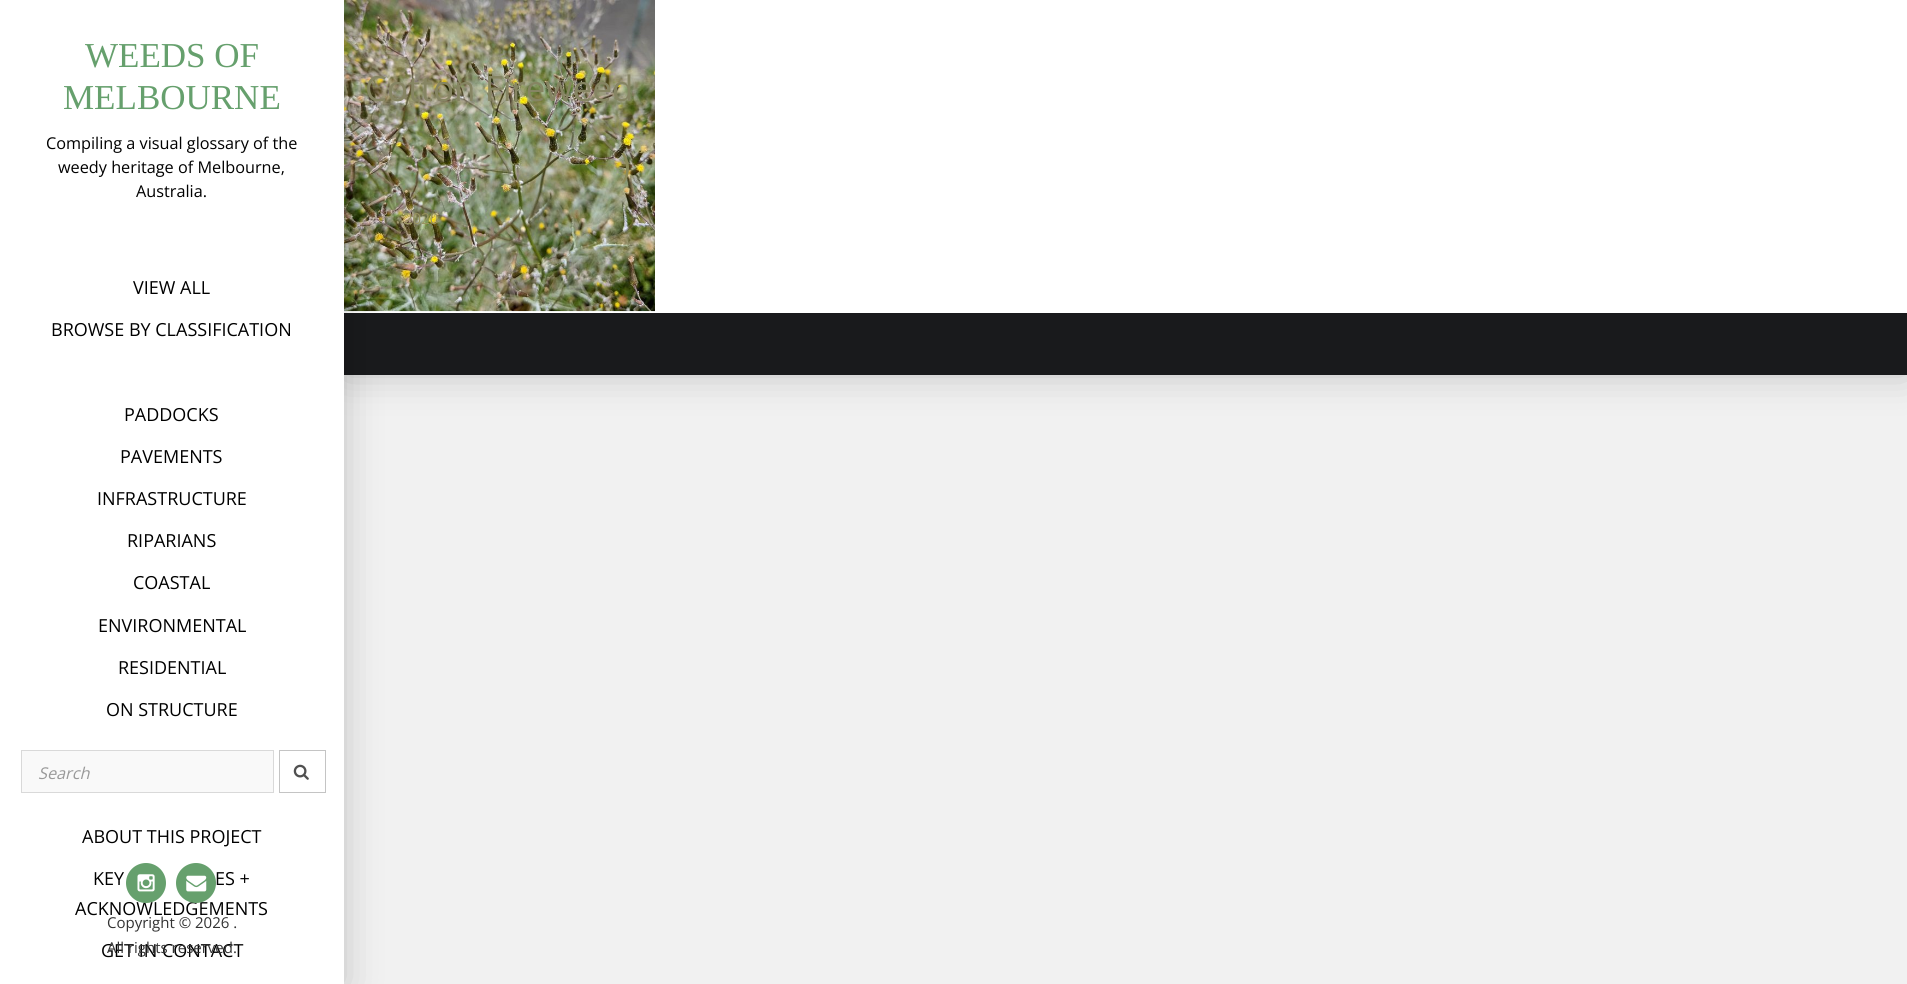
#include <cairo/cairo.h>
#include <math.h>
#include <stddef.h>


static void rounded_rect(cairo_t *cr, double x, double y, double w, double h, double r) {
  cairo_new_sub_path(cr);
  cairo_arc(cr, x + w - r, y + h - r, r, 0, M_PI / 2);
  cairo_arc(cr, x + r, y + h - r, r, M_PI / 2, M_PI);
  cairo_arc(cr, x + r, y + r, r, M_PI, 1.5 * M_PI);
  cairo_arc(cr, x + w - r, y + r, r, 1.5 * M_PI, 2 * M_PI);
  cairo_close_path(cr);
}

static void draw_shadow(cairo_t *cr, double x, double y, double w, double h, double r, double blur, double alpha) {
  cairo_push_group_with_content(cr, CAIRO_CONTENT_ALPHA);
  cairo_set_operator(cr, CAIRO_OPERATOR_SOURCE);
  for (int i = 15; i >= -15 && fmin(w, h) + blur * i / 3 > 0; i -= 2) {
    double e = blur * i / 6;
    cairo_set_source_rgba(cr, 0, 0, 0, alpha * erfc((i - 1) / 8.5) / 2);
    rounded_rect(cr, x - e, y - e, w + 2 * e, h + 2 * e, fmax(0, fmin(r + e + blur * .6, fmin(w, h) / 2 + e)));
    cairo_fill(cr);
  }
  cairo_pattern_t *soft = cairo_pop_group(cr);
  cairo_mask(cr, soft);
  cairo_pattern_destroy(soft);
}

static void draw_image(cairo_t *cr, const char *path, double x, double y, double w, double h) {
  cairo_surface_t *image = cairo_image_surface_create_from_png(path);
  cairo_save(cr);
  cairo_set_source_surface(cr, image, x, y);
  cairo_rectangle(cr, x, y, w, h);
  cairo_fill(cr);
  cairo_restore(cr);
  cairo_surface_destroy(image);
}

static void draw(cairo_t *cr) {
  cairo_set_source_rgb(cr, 241 / 255.0, 241 / 255.0, 241 / 255.0);
  cairo_paint(cr);
  cairo_set_source_rgb(cr, 0, 0, 0);
  draw_shadow(cr, 344, 0, 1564, 375, 0, 19, 0.2);
  cairo_set_source_rgb(cr, 1, 1, 1);
  cairo_rectangle(cr, 344, 0, 1563, 313);
  cairo_fill(cr);
  draw_image(cr, "images/4.png", 344, 0, 311, 312);
  cairo_set_source_rgb(cr, 25 / 255.0, 26 / 255.0, 28 / 255.0);
  cairo_rectangle(cr, 344, 313, 1563, 62);
  cairo_fill(cr);
  cairo_set_source_rgb(cr, 0, 0, 0);
  draw_shadow(cr, 0, 0, 344, 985, 0, 19, 0.2);
  cairo_set_source_rgb(cr, 1, 1, 1);
  cairo_rectangle(cr, 0, 0, 344, 984);
  cairo_fill(cr);
  cairo_set_source_rgb(cr, 249 / 255.0, 249 / 255.0, 249 / 255.0);
  cairo_rectangle(cr, 21.5, 750.5, 252, 42);
  cairo_fill_preserve(cr);
  cairo_set_source_rgb(cr, 217 / 255.0, 217 / 255.0, 217 / 255.0);
  cairo_set_line_width(cr, 1);
  cairo_stroke(cr);
  cairo_rectangle(cr, 279.5, 750.5, 46, 42);
  cairo_set_source_rgb(cr, 196 / 255.0, 196 / 255.0, 196 / 255.0);
  cairo_stroke(cr);
  draw_image(cr, "images/1.png", 293, 764, 16, 16);
  cairo_select_font_face(cr, "Liberation Serif", CAIRO_FONT_SLANT_NORMAL, CAIRO_FONT_WEIGHT_NORMAL);
  cairo_set_font_size(cr, 35);
  cairo_set_source_rgb(cr, 102 / 255.0, 160 / 255.0, 109 / 255.0);
  cairo_move_to(cr, 85, 67);
  cairo_show_text(cr, "WEEDS OF");
  cairo_move_to(cr, 63, 109);
  cairo_show_text(cr, "MELBOURNE");
  cairo_select_font_face(cr, "Open Sans", CAIRO_FONT_SLANT_NORMAL, CAIRO_FONT_WEIGHT_NORMAL);
  cairo_set_font_size(cr, 16.25);
  cairo_set_source_rgb(cr, 0, 0, 0);
  cairo_move_to(cr, 46, 149);
  cairo_show_text(cr, "Compiling a visual glossary of the");
  cairo_move_to(cr, 58, 173);
  cairo_show_text(cr, "weedy heritage of Melbourne,");
  cairo_move_to(cr, 136, 197);
  cairo_show_text(cr, "Australia.");
  cairo_set_font_size(cr, 18);
  cairo_move_to(cr, 133, 294);
  cairo_show_text(cr, "VIEW ALL");
  cairo_move_to(cr, 51, 336);
  cairo_show_text(cr, "BROWSE BY CLASSIFICATION");
  cairo_move_to(cr, 124, 421);
  cairo_show_text(cr, "PADDOCKS");
  cairo_move_to(cr, 120, 463);
  cairo_show_text(cr, "PAVEMENTS");
  cairo_move_to(cr, 97, 505);
  cairo_show_text(cr, "INFRASTRUCTURE");
  cairo_move_to(cr, 127, 547);
  cairo_show_text(cr, "RIPARIANS");
  cairo_move_to(cr, 133, 589);
  cairo_show_text(cr, "COASTAL");
  cairo_move_to(cr, 98, 632);
  cairo_show_text(cr, "ENVIRONMENTAL");
  cairo_move_to(cr, 118, 674);
  cairo_show_text(cr, "RESIDENTIAL");
  cairo_move_to(cr, 106, 716);
  cairo_show_text(cr, "ON STRUCTURE");
  cairo_move_to(cr, 82, 843);
  cairo_show_text(cr, "ABOUT THIS PROJECT");
  cairo_move_to(cr, 93, 885);
  cairo_show_text(cr, "KEY");
  cairo_move_to(cr, 215, 885);
  cairo_show_text(cr, "ES +");
  cairo_move_to(cr, 75, 915);
  cairo_show_text(cr, "ACKNOWLEDGEMENTS");
  cairo_move_to(cr, 101, 957);
  cairo_show_text(cr, "GET IN CONTACT");
  cairo_select_font_face(cr, "Open Sans", CAIRO_FONT_SLANT_ITALIC, CAIRO_FONT_WEIGHT_NORMAL);
  cairo_set_font_size(cr, 16.25);
  cairo_set_source_rgb(cr, 153 / 255.0, 153 / 255.0, 153 / 255.0);
  cairo_move_to(cr, 38, 779);
  cairo_show_text(cr, "Search");
  cairo_set_source_rgb(cr, 102 / 255.0, 160 / 255.0, 109 / 255.0);
  cairo_new_path(cr);
  cairo_arc(cr, 146, 883, 20, 0, 2 * M_PI);
  cairo_fill(cr);
  draw_image(cr, "images/2.png", 137, 874, 18, 18);
  cairo_arc(cr, 196, 883, 20, 0, 2 * M_PI);
  cairo_fill(cr);
  draw_image(cr, "images/3.png", 186, 875, 21, 17);
  cairo_select_font_face(cr, "Open Sans", CAIRO_FONT_SLANT_NORMAL, CAIRO_FONT_WEIGHT_NORMAL);
  cairo_set_font_size(cr, 15);
  cairo_set_source_rgb(cr, 51 / 255.0, 51 / 255.0, 51 / 255.0);
  cairo_move_to(cr, 107, 928);
  cairo_show_text(cr, "Copyright © 2026 .");
  cairo_move_to(cr, 107, 953);
  cairo_show_text(cr, "All rights reserved.");
  cairo_set_font_size(cr, 35);
  cairo_set_source_rgb(cr, 134 / 255.0, 133 / 255.0, 99 / 255.0);
  cairo_move_to(cr, 365, 101);
  cairo_show_text(cr, "Cotton Fireweed");
  cairo_set_source_rgb(cr, 140 / 255.0, 138 / 255.0, 90 / 255.0);
  cairo_move_to(cr, 620, 178);
  cairo_show_text(cr, ")");
  cairo_set_font_size(cr, 15);
  cairo_set_source_rgb(cr, 153 / 255.0, 149 / 255.0, 96 / 255.0);
  cairo_move_to(cr, 404, 224);
  cairo_show_text(cr, "2020");
}

int main(void) {
  cairo_surface_t *surface = cairo_image_surface_create(CAIRO_FORMAT_RGB24, 1907, 984);
  cairo_t *cr = cairo_create(surface);
  cairo_font_options_t *options = cairo_font_options_create();
  cairo_font_options_set_hint_metrics(options, CAIRO_HINT_METRICS_OFF);
  cairo_font_options_set_hint_style(options, CAIRO_HINT_STYLE_NONE);
  cairo_set_font_options(cr, options);
  cairo_set_miter_limit(cr, 4);
  draw(cr);
  cairo_surface_write_to_png(surface, "out.png");
  cairo_font_options_destroy(options);
  cairo_destroy(cr);
  cairo_surface_destroy(surface);
  return 0;
}
